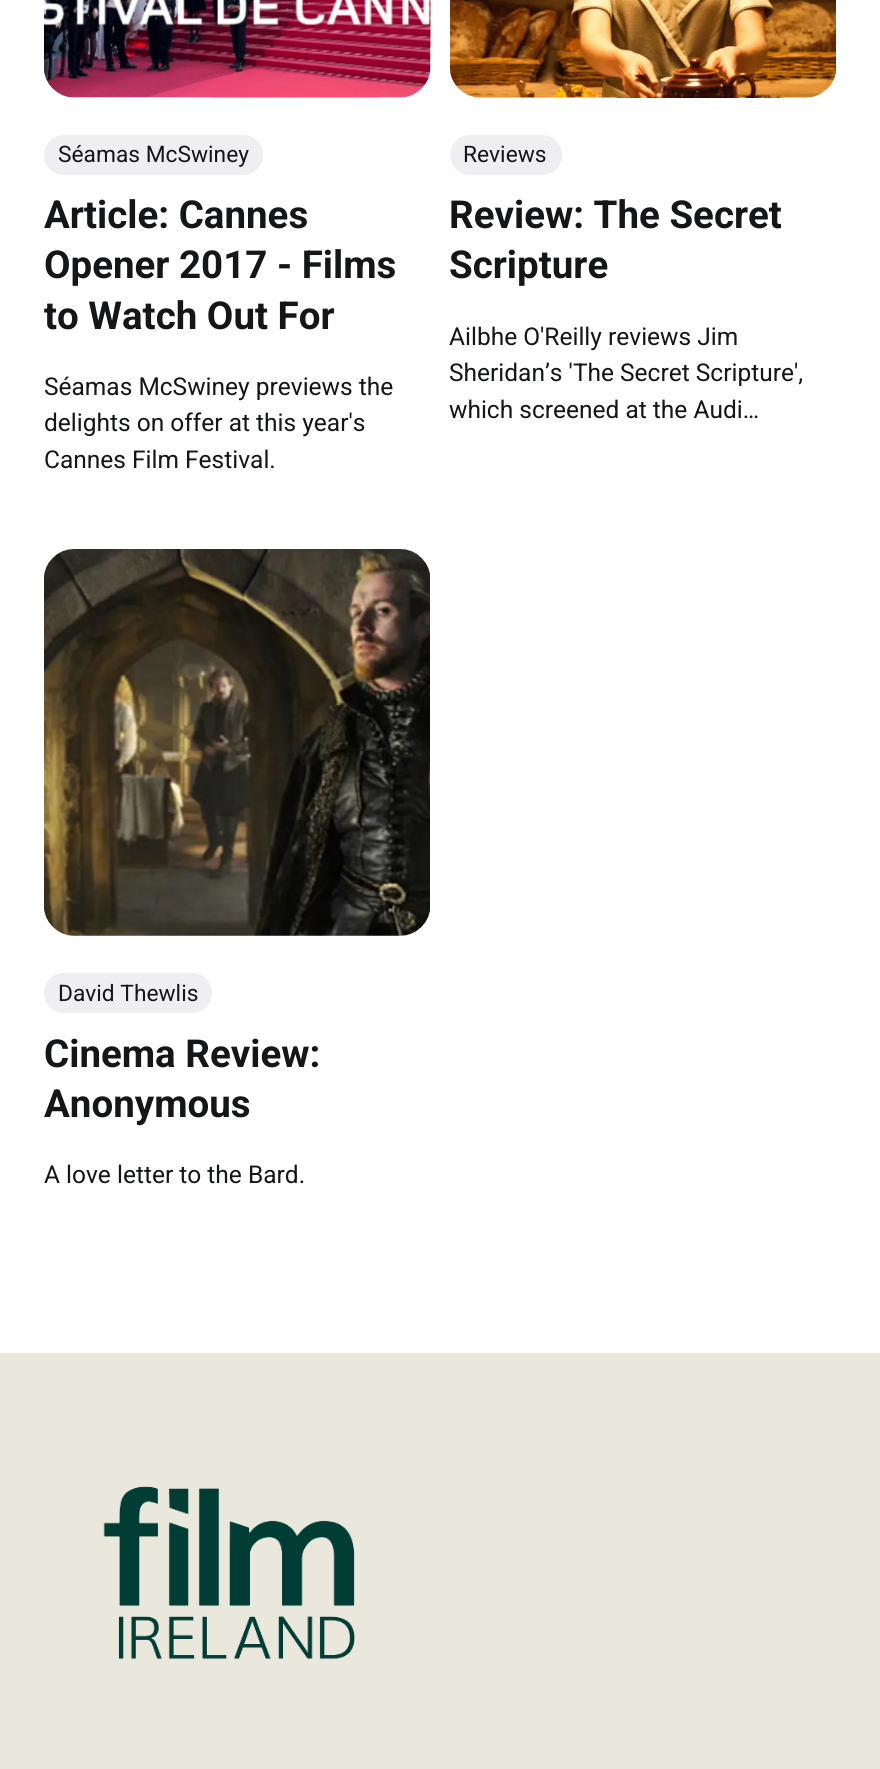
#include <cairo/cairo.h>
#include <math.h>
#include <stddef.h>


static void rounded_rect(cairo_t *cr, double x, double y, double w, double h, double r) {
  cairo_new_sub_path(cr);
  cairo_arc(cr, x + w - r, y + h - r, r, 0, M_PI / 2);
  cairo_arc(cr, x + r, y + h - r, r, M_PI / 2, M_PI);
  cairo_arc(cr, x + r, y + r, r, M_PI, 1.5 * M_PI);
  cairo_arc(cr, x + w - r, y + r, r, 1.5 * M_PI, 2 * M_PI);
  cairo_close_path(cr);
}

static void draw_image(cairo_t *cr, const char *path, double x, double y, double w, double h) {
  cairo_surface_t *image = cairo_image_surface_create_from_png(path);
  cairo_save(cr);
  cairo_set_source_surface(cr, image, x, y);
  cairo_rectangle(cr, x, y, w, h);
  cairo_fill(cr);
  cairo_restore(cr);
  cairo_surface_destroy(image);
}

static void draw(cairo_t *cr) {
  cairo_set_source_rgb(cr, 1, 1, 1);
  cairo_paint(cr);
  draw_image(cr, "images/1.png", 44, 0, 387, 98);
  cairo_set_source_rgb(cr, 239 / 255.0, 238 / 255.0, 240 / 255.0);
  rounded_rect(cr, 44, 135, 219, 40, 20);
  cairo_fill(cr);
  draw_image(cr, "images/2.png", 450, 0, 386, 98);
  rounded_rect(cr, 450, 135, 112, 40, 20);
  cairo_fill(cr);
  draw_image(cr, "images/3.png", 44, 549, 386, 387);
  rounded_rect(cr, 44, 973, 168, 40, 20);
  cairo_fill(cr);
  cairo_set_source_rgb(cr, 234 / 255.0, 231 / 255.0, 220 / 255.0);
  cairo_rectangle(cr, 0, 1353, 880, 416);
  cairo_fill(cr);
  draw_image(cr, "images/4.png", 103, 1486, 252, 174);
  cairo_select_font_face(cr, "Roboto", CAIRO_FONT_SLANT_NORMAL, CAIRO_FONT_WEIGHT_NORMAL);
  cairo_set_font_size(cr, 22.75);
  cairo_set_source_rgb(cr, 21 / 255.0, 22 / 255.0, 24 / 255.0);
  cairo_move_to(cr, 58, 162);
  cairo_show_text(cr, "Séamas McSwiney");
  cairo_select_font_face(cr, "Roboto", CAIRO_FONT_SLANT_NORMAL, CAIRO_FONT_WEIGHT_BOLD);
  cairo_set_font_size(cr, 38.5);
  cairo_move_to(cr, 44, 228);
  cairo_show_text(cr, "Article: Cannes");
  cairo_move_to(cr, 44, 278);
  cairo_show_text(cr, "Opener 2017 - Films");
  cairo_move_to(cr, 44, 329);
  cairo_show_text(cr, "to Watch Out For");
  cairo_select_font_face(cr, "Roboto", CAIRO_FONT_SLANT_NORMAL, CAIRO_FONT_WEIGHT_NORMAL);
  cairo_set_font_size(cr, 24.5);
  cairo_move_to(cr, 44, 395);
  cairo_show_text(cr, "Séamas McSwiney previews the");
  cairo_move_to(cr, 44, 431);
  cairo_show_text(cr, "delights on offer at this year's");
  cairo_move_to(cr, 44, 468);
  cairo_show_text(cr, "Cannes Film Festival.");
  cairo_set_font_size(cr, 22.75);
  cairo_move_to(cr, 463, 162);
  cairo_show_text(cr, "Reviews");
  cairo_select_font_face(cr, "Roboto", CAIRO_FONT_SLANT_NORMAL, CAIRO_FONT_WEIGHT_BOLD);
  cairo_set_font_size(cr, 38.5);
  cairo_move_to(cr, 449, 228);
  cairo_show_text(cr, "Review: The Secret");
  cairo_move_to(cr, 449, 278);
  cairo_show_text(cr, "Scripture");
  cairo_select_font_face(cr, "Roboto", CAIRO_FONT_SLANT_NORMAL, CAIRO_FONT_WEIGHT_NORMAL);
  cairo_set_font_size(cr, 24.5);
  cairo_move_to(cr, 449, 345);
  cairo_show_text(cr, "Ailbhe O'Reilly reviews Jim");
  cairo_move_to(cr, 449, 381);
  cairo_show_text(cr, "Sheridan’s 'The Secret Scripture',");
  cairo_move_to(cr, 449, 418);
  cairo_show_text(cr, "which screened at the Audi…");
  cairo_set_font_size(cr, 22.75);
  cairo_move_to(cr, 58, 1001);
  cairo_show_text(cr, "David Thewlis");
  cairo_select_font_face(cr, "Roboto", CAIRO_FONT_SLANT_NORMAL, CAIRO_FONT_WEIGHT_BOLD);
  cairo_set_font_size(cr, 38.5);
  cairo_move_to(cr, 44, 1067);
  cairo_show_text(cr, "Cinema Review:");
  cairo_move_to(cr, 44, 1117);
  cairo_show_text(cr, "Anonymous");
  cairo_select_font_face(cr, "Roboto", CAIRO_FONT_SLANT_NORMAL, CAIRO_FONT_WEIGHT_NORMAL);
  cairo_set_font_size(cr, 24.5);
  cairo_move_to(cr, 44, 1183);
  cairo_show_text(cr, "A love letter to the Bard.");
}

int main(void) {
  cairo_surface_t *surface = cairo_image_surface_create(CAIRO_FORMAT_RGB24, 880, 1769);
  cairo_t *cr = cairo_create(surface);
  cairo_font_options_t *options = cairo_font_options_create();
  cairo_font_options_set_hint_metrics(options, CAIRO_HINT_METRICS_OFF);
  cairo_font_options_set_hint_style(options, CAIRO_HINT_STYLE_NONE);
  cairo_set_font_options(cr, options);
  cairo_set_miter_limit(cr, 4);
  draw(cr);
  cairo_surface_write_to_png(surface, "out.png");
  cairo_font_options_destroy(options);
  cairo_destroy(cr);
  cairo_surface_destroy(surface);
  return 0;
}
